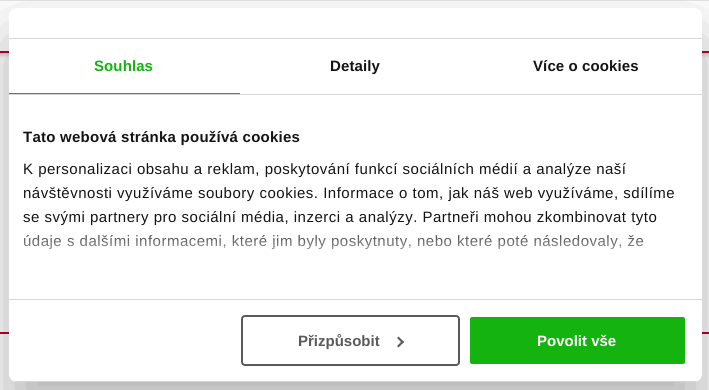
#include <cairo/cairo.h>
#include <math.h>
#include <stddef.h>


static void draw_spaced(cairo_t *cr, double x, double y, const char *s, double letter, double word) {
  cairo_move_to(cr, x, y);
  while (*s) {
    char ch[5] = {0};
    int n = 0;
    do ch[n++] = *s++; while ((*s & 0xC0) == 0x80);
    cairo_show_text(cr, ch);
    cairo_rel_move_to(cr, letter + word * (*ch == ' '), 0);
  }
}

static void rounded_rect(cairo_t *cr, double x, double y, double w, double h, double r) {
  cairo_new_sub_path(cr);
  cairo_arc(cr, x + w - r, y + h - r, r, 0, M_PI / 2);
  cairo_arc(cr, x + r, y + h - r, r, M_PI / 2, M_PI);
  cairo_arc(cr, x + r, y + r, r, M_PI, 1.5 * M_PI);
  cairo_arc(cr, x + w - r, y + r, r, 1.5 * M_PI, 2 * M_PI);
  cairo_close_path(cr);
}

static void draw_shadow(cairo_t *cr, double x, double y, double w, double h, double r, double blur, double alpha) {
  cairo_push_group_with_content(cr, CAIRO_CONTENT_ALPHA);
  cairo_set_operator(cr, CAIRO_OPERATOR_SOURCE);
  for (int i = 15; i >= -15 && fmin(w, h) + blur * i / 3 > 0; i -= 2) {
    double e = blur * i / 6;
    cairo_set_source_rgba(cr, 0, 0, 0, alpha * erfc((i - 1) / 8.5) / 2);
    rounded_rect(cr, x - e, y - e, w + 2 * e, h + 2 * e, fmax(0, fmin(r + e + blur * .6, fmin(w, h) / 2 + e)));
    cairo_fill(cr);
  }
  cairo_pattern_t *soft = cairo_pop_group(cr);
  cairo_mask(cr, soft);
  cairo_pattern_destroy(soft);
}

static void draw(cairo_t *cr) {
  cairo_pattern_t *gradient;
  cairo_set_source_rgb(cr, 1, 1, 1);
  cairo_paint(cr);
  cairo_set_source_rgb(cr, 0, 0, 0);
  draw_shadow(cr, -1, 0, 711, 55, 0, 2, 0.2);
  cairo_set_source_rgb(cr, 1, 1, 1);
  cairo_rectangle(cr, 0, 1, 709, 50);
  cairo_fill(cr);
  cairo_set_source_rgb(cr, 229 / 255.0, 229 / 255.0, 229 / 255.0);
  cairo_rectangle(cr, 0, 0, 709, 1);
  cairo_fill(cr);
  cairo_set_source_rgb(cr, 185 / 255.0, 1 / 255.0, 43 / 255.0);
  cairo_rectangle(cr, 0, 51, 709, 2);
  cairo_fill(cr);
  cairo_rectangle(cr, 0, 332, 709, 2);
  cairo_fill(cr);
  cairo_set_source_rgb(cr, 0, 0, 0);
  draw_shadow(cr, 9, 40, 693, 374, 8, 34, 0.3);
  cairo_set_source_rgb(cr, 1, 1, 1);
  rounded_rect(cr, 9, 8, 693, 374, 8);
  cairo_fill(cr);
  cairo_set_source_rgb(cr, 214 / 255.0, 214 / 255.0, 214 / 255.0);
  cairo_rectangle(cr, 9, 38, 693, 1);
  cairo_fill(cr);
  cairo_rectangle(cr, 9, 94, 693, 1);
  cairo_fill(cr);
  cairo_set_source_rgb(cr, 20 / 255.0, 179 / 255.0, 16 / 255.0);
  cairo_rectangle(cr, 9, 93, 231, 1);
  cairo_fill(cr);
  cairo_set_source_rgb(cr, 214 / 255.0, 214 / 255.0, 214 / 255.0);
  cairo_rectangle(cr, 9, 299, 693, 1);
  cairo_fill(cr);
  cairo_save(cr);
  rounded_rect(cr, 9, 8, 693, 374, 8);
  cairo_clip(cr);
  cairo_rectangle(cr, 9, 381, 693, 1);
  cairo_fill(cr);
  cairo_restore(cr);
  rounded_rect(cr, 242, 316, 217, 49, 3);
  cairo_set_source_rgb(cr, 91 / 255.0, 90 / 255.0, 90 / 255.0);
  cairo_stroke(cr);
  cairo_new_path(cr);
  cairo_move_to(cr, 398.5, 336.5);
  cairo_line_to(cr, 404, 342);
  cairo_line_to(cr, 402.5, 343.5);
  cairo_line_to(cr, 397, 338);
  cairo_close_path(cr);
  cairo_fill(cr);
  cairo_new_path(cr);
  cairo_move_to(cr, 402.5, 340.5);
  cairo_line_to(cr, 404, 342);
  cairo_line_to(cr, 398.5, 347.5);
  cairo_line_to(cr, 397, 346);
  cairo_close_path(cr);
  cairo_fill(cr);
  cairo_set_source_rgb(cr, 20 / 255.0, 179 / 255.0, 16 / 255.0);
  rounded_rect(cr, 469, 316, 217, 49, 3);
  cairo_fill_preserve(cr);
  cairo_set_source_rgb(cr, 1, 1, 1);
  cairo_stroke(cr);
  cairo_select_font_face(cr, "Liberation Sans", CAIRO_FONT_SLANT_NORMAL, CAIRO_FONT_WEIGHT_BOLD);
  cairo_set_font_size(cr, 15);
  cairo_set_source_rgb(cr, 20 / 255.0, 179 / 255.0, 16 / 255.0);
  draw_spaced(cr, 94, 71, "Souhlas", 0.1, 0);
  cairo_set_source_rgb(cr, 20 / 255.0, 20 / 255.0, 20 / 255.0);
  draw_spaced(cr, 330, 71, "Detaily", 0.1, 0);
  draw_spaced(cr, 533, 71, "Více o cookies", 0.1, 0);
  draw_spaced(cr, 23, 142, "Tato webová stránka používá cookies", 0.25, 0);
  cairo_select_font_face(cr, "Liberation Sans", CAIRO_FONT_SLANT_NORMAL, CAIRO_FONT_WEIGHT_NORMAL);
  draw_spaced(cr, 23, 174, "K personalizaci obsahu a reklam, poskytování funkcí sociálních médií a analýze naší", 0.5, 0);
  draw_spaced(cr, 23, 198, "návštěvnosti využíváme soubory cookies. Informace o tom, jak náš web využíváme, sdílíme", 0.5, 0);
  draw_spaced(cr, 23, 222, "se svými partnery pro sociální média, inzerci a analýzy. Partneři mohou zkombinovat tyto", 0.5, 0);
  draw_spaced(cr, 23, 246, "údaje s dalšími informacemi, které jim byly poskytnuty, nebo které poté následovaly, že", 0.5, 0);
  gradient = cairo_pattern_create_linear(349, 299, 349, 224);
  cairo_pattern_add_color_stop_rgba(gradient, 0, 1, 1, 1, 1);
  cairo_pattern_add_color_stop_rgba(gradient, 0.5, 1, 1, 1, 0.8);
  cairo_pattern_add_color_stop_rgba(gradient, 1, 1, 1, 1, 0);
  cairo_set_source(cr, gradient);
  cairo_pattern_destroy(gradient);
  cairo_rectangle(cr, 24, 234, 620, 16);
  cairo_fill(cr);
  cairo_select_font_face(cr, "Liberation Sans", CAIRO_FONT_SLANT_NORMAL, CAIRO_FONT_WEIGHT_BOLD);
  cairo_set_source_rgb(cr, 91 / 255.0, 90 / 255.0, 90 / 255.0);
  cairo_move_to(cr, 298, 346);
  cairo_show_text(cr, "Přizpůsobit");
  cairo_set_source_rgb(cr, 1, 1, 1);
  cairo_move_to(cr, 537, 346);
  cairo_show_text(cr, "Povolit vše");
}

int main(void) {
  cairo_surface_t *surface = cairo_image_surface_create(CAIRO_FORMAT_RGB24, 709, 390);
  cairo_t *cr = cairo_create(surface);
  cairo_font_options_t *options = cairo_font_options_create();
  cairo_font_options_set_hint_metrics(options, CAIRO_HINT_METRICS_OFF);
  cairo_font_options_set_hint_style(options, CAIRO_HINT_STYLE_NONE);
  cairo_set_font_options(cr, options);
  cairo_set_miter_limit(cr, 4);
  draw(cr);
  cairo_surface_write_to_png(surface, "out.png");
  cairo_font_options_destroy(options);
  cairo_destroy(cr);
  cairo_surface_destroy(surface);
  return 0;
}
